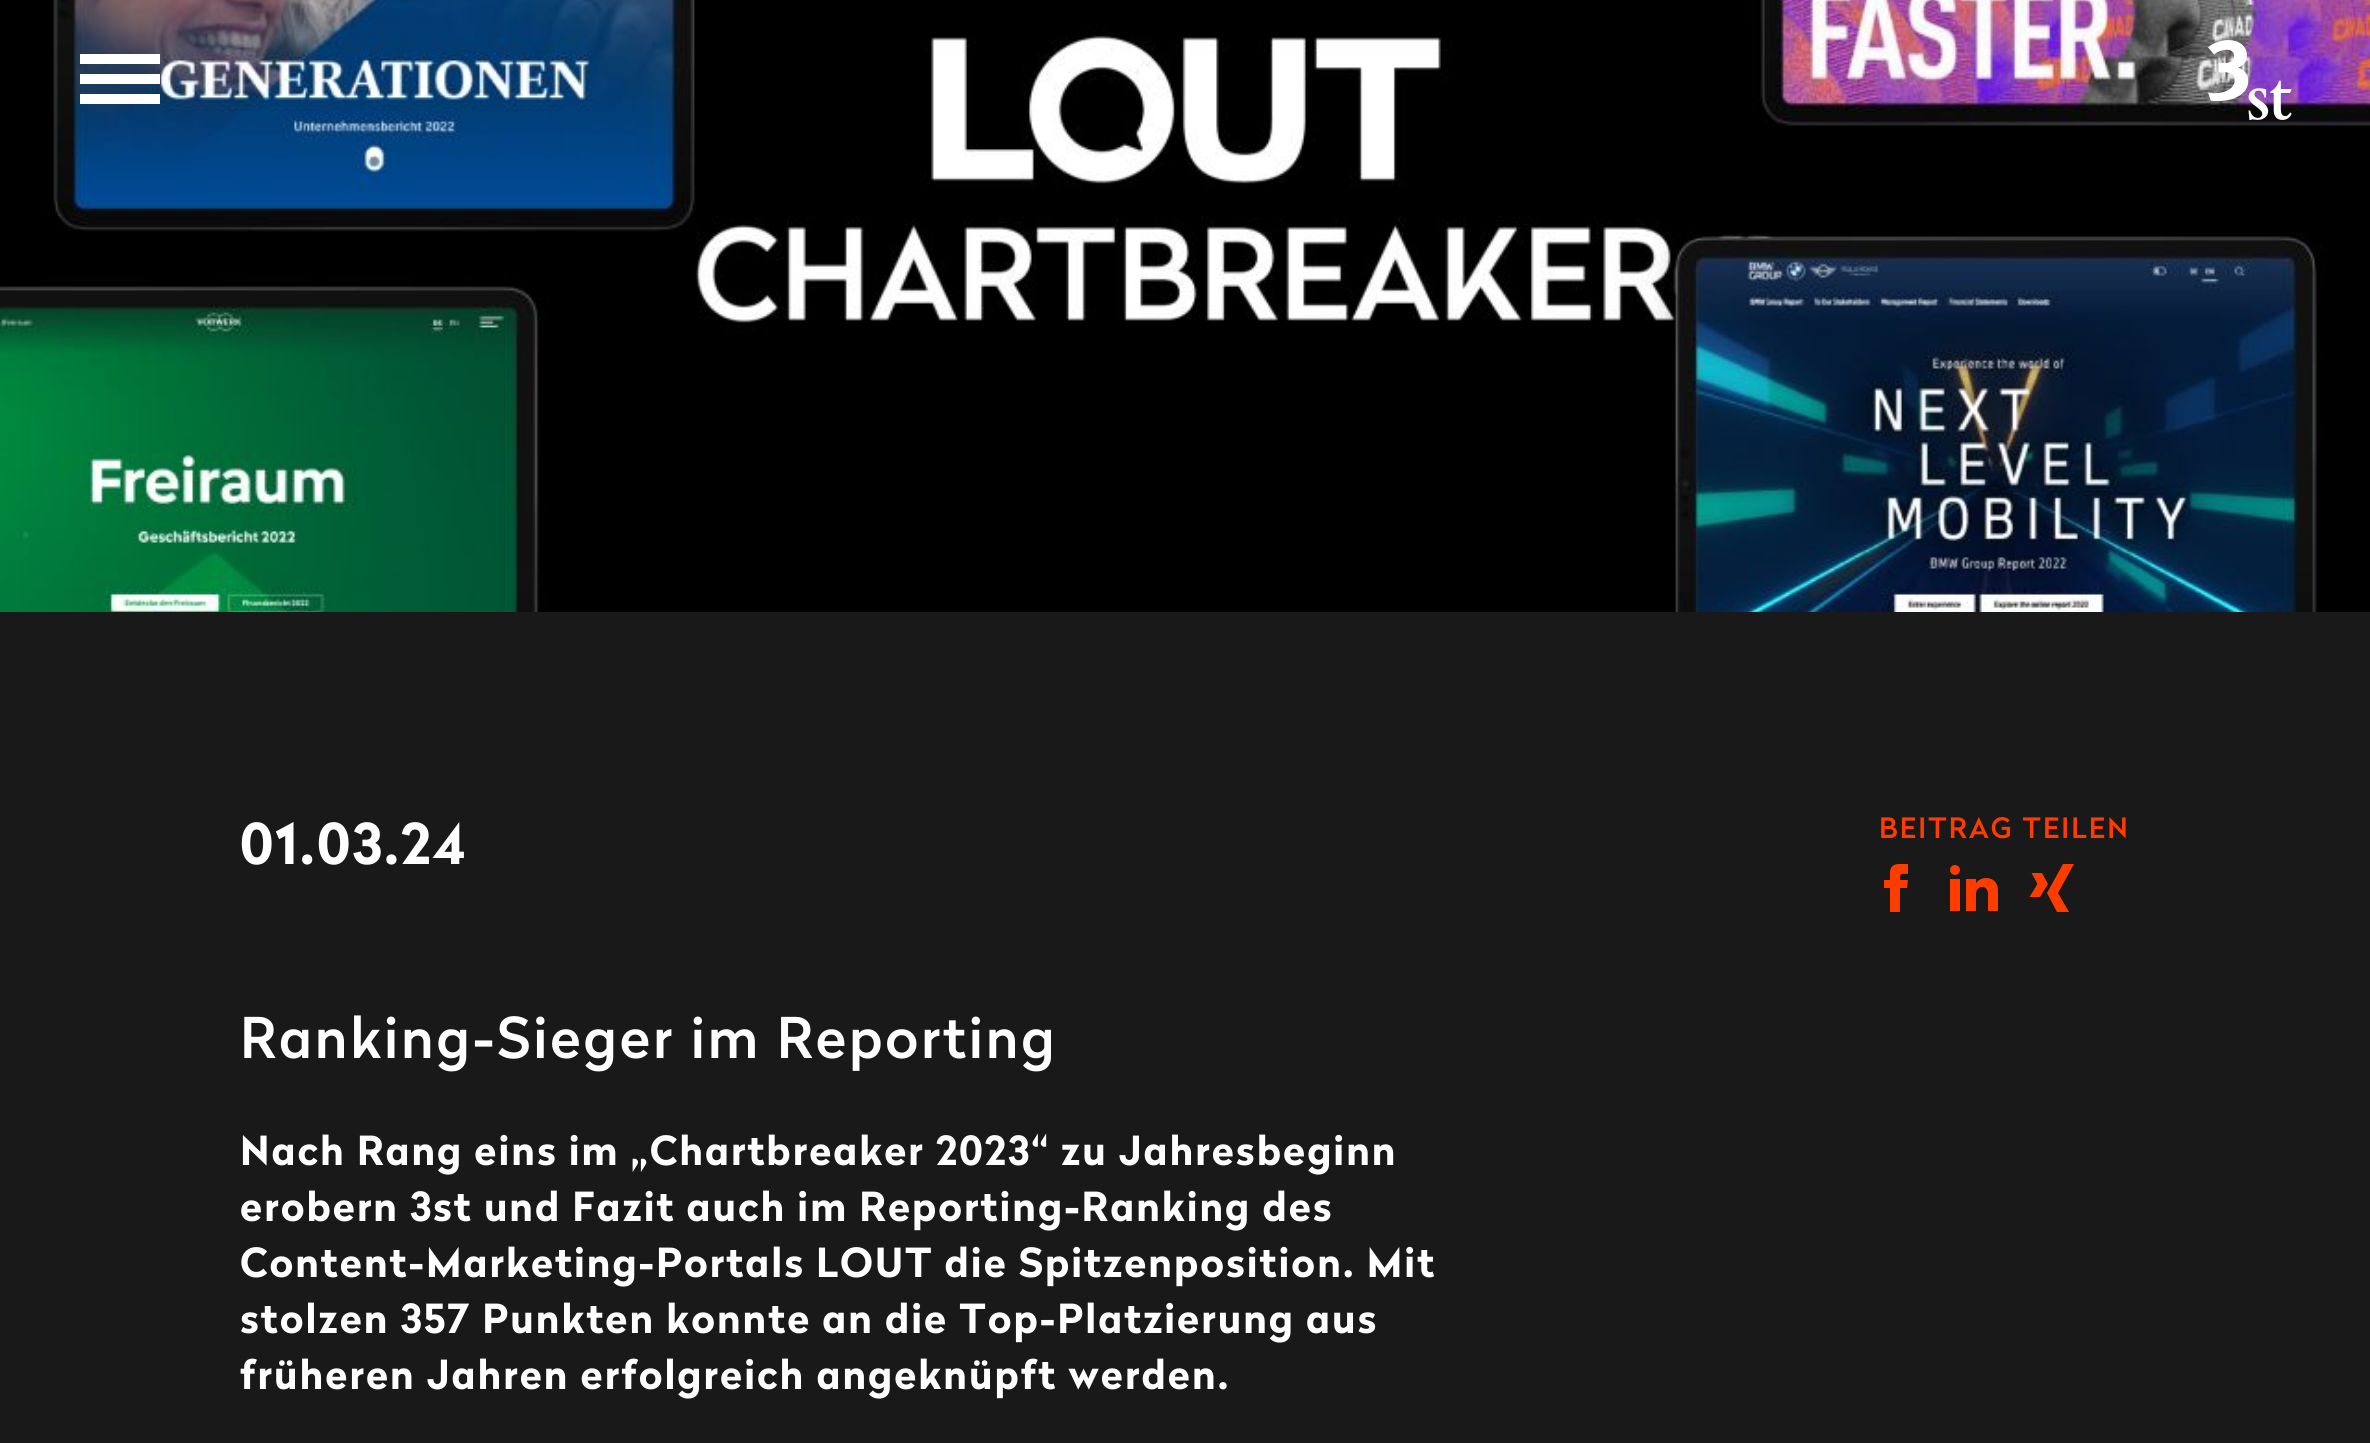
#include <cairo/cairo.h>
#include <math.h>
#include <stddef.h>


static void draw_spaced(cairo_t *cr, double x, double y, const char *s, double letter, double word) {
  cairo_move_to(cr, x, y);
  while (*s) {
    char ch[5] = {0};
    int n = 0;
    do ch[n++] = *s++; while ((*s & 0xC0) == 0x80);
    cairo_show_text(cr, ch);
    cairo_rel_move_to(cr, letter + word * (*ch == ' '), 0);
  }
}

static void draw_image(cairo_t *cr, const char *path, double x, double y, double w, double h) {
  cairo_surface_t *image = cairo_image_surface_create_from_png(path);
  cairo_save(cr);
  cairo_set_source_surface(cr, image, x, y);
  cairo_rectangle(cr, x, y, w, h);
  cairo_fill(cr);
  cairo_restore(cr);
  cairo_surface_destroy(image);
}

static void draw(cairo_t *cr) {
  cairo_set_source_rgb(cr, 25 / 255.0, 25 / 255.0, 25 / 255.0);
  cairo_paint(cr);
  draw_image(cr, "images/2.png", 0, 0, 2370, 612);
  cairo_set_source_rgb(cr, 1, 1, 1);
  cairo_rectangle(cr, 80, 54, 80, 10);
  cairo_fill(cr);
  cairo_rectangle(cr, 80, 74, 80, 10);
  cairo_fill(cr);
  cairo_rectangle(cr, 80, 94, 80, 10);
  cairo_fill(cr);
  draw_image(cr, "images/1.png", 2208, 40, 84, 80);
  cairo_save(cr);
  cairo_rectangle(cr, 1872, 864, 48, 48);
  cairo_clip(cr);
  cairo_set_source_rgb(cr, 1, 60 / 255.0, 0);
  cairo_new_path(cr);
  cairo_move_to(cr, 1890, 880);
  cairo_line_to(cr, 1884, 880);
  cairo_line_to(cr, 1884, 888);
  cairo_line_to(cr, 1890, 888);
  cairo_line_to(cr, 1890, 912);
  cairo_line_to(cr, 1900, 912);
  cairo_line_to(cr, 1900, 888);
  cairo_line_to(cr, 1907, 888);
  cairo_line_to(cr, 1908, 880);
  cairo_line_to(cr, 1900, 880);
  cairo_curve_to(cr, 1900, 872, 1901, 874, 1908, 874);
  cairo_line_to(cr, 1908, 864);
  cairo_curve_to(cr, 1900, 864, 1890, 862, 1890, 873);
  cairo_close_path(cr);
  cairo_fill(cr);
  cairo_restore(cr);
  draw_image(cr, "images/3.png", 1950, 865, 48, 46);
  cairo_set_source_rgb(cr, 1, 60 / 255.0, 0);
  cairo_new_path(cr);
  cairo_move_to(cr, 2074, 864);
  cairo_line_to(cr, 2063, 864);
  cairo_line_to(cr, 2047, 893);
  cairo_line_to(cr, 2057, 912);
  cairo_line_to(cr, 2069, 912);
  cairo_line_to(cr, 2058, 893);
  cairo_close_path(cr);
  cairo_fill(cr);
  cairo_new_path(cr);
  cairo_move_to(cr, 2042, 873);
  cairo_line_to(cr, 2031.5, 873);
  cairo_line_to(cr, 2037.5, 884);
  cairo_line_to(cr, 2029.5, 897);
  cairo_line_to(cr, 2040, 897);
  cairo_line_to(cr, 2048, 884);
  cairo_close_path(cr);
  cairo_fill(cr);
  cairo_select_font_face(cr, "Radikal", CAIRO_FONT_SLANT_NORMAL, CAIRO_FONT_WEIGHT_NORMAL);
  cairo_set_font_size(cr, 56);
  cairo_set_source_rgb(cr, 1, 1, 1);
  draw_spaced(cr, 240, 864, "01.03.24", 2, 0);
  cairo_select_font_face(cr, "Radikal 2", CAIRO_FONT_SLANT_NORMAL, CAIRO_FONT_WEIGHT_NORMAL);
  cairo_set_font_size(cr, 28);
  cairo_set_source_rgb(cr, 1, 60 / 255.0, 0);
  draw_spaced(cr, 1879, 838, "BEITRAG TEILEN", 2.1, 0);
  cairo_set_font_size(cr, 56);
  cairo_set_source_rgb(cr, 1, 1, 1);
  draw_spaced(cr, 240, 1058, "Ranking-Sieger im Reporting", 2.8, 0);
  cairo_select_font_face(cr, "Radikal", CAIRO_FONT_SLANT_NORMAL, CAIRO_FONT_WEIGHT_NORMAL);
  cairo_set_font_size(cr, 40);
  draw_spaced(cr, 240, 1165, "Nach Rang eins im „Chartbreaker 2023“ zu Jahresbeginn", 2, 0);
  draw_spaced(cr, 240, 1221, "erobern 3st und Fazit auch im Reporting-Ranking des", 2, 0);
  draw_spaced(cr, 240, 1277, "Content-Marketing-Portals LOUT die Spitzenposition. Mit", 2, 0);
  draw_spaced(cr, 240, 1333, "stolzen 357 Punkten konnte an die Top-Platzierung aus", 2, 0);
  draw_spaced(cr, 240, 1389, "früheren Jahren erfolgreich angeknüpft werden.", 2, 0);
}

int main(void) {
  cairo_surface_t *surface = cairo_image_surface_create(CAIRO_FORMAT_RGB24, 2370, 1443);
  cairo_t *cr = cairo_create(surface);
  cairo_font_options_t *options = cairo_font_options_create();
  cairo_font_options_set_hint_metrics(options, CAIRO_HINT_METRICS_OFF);
  cairo_font_options_set_hint_style(options, CAIRO_HINT_STYLE_NONE);
  cairo_set_font_options(cr, options);
  cairo_set_miter_limit(cr, 4);
  draw(cr);
  cairo_surface_write_to_png(surface, "out.png");
  cairo_font_options_destroy(options);
  cairo_destroy(cr);
  cairo_surface_destroy(surface);
  return 0;
}
